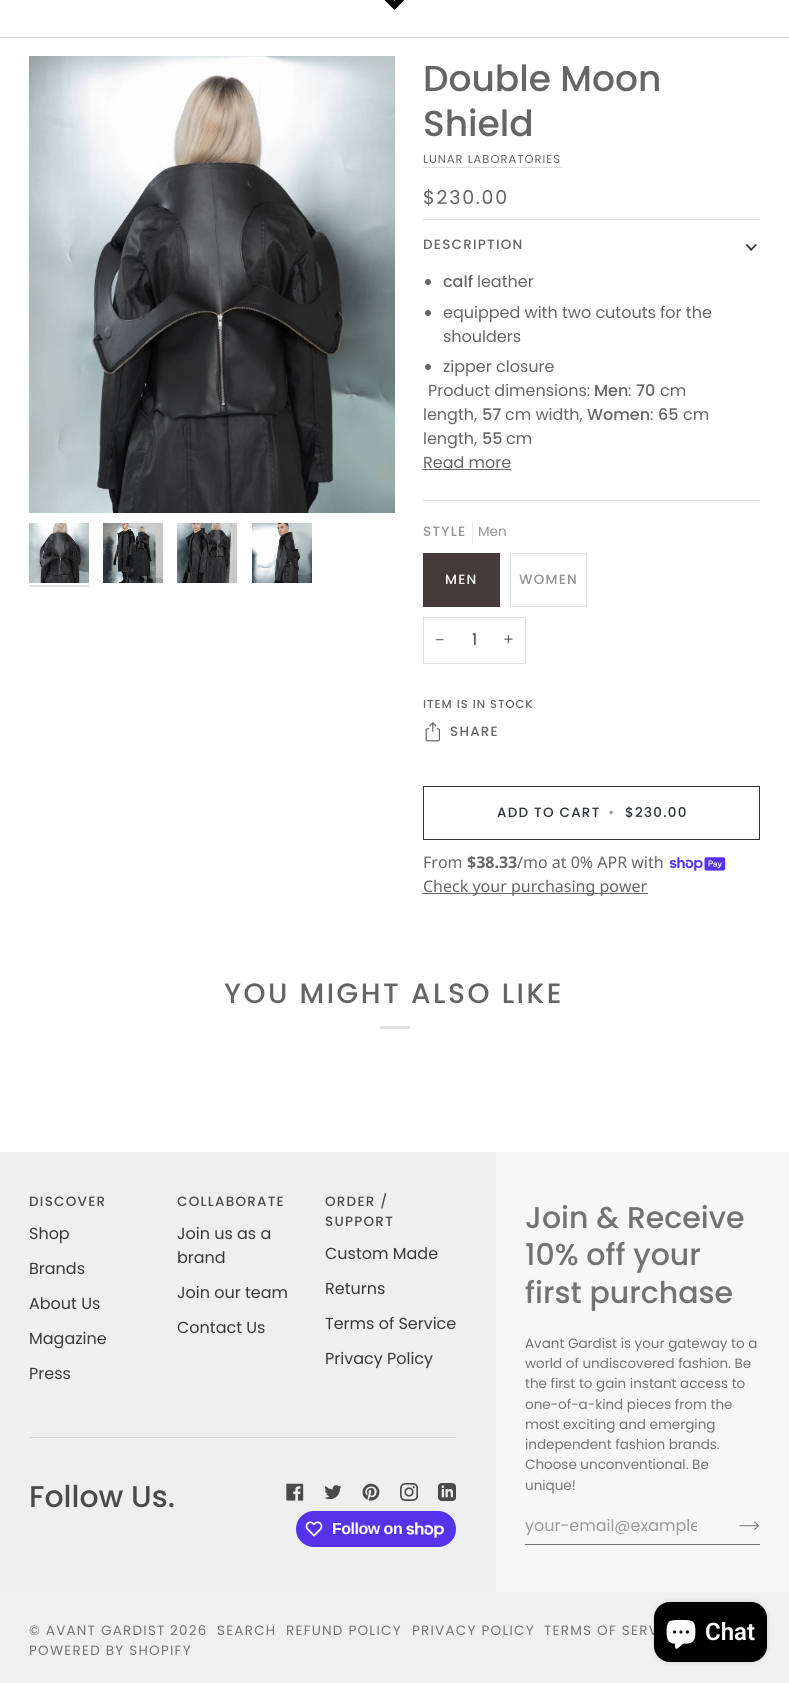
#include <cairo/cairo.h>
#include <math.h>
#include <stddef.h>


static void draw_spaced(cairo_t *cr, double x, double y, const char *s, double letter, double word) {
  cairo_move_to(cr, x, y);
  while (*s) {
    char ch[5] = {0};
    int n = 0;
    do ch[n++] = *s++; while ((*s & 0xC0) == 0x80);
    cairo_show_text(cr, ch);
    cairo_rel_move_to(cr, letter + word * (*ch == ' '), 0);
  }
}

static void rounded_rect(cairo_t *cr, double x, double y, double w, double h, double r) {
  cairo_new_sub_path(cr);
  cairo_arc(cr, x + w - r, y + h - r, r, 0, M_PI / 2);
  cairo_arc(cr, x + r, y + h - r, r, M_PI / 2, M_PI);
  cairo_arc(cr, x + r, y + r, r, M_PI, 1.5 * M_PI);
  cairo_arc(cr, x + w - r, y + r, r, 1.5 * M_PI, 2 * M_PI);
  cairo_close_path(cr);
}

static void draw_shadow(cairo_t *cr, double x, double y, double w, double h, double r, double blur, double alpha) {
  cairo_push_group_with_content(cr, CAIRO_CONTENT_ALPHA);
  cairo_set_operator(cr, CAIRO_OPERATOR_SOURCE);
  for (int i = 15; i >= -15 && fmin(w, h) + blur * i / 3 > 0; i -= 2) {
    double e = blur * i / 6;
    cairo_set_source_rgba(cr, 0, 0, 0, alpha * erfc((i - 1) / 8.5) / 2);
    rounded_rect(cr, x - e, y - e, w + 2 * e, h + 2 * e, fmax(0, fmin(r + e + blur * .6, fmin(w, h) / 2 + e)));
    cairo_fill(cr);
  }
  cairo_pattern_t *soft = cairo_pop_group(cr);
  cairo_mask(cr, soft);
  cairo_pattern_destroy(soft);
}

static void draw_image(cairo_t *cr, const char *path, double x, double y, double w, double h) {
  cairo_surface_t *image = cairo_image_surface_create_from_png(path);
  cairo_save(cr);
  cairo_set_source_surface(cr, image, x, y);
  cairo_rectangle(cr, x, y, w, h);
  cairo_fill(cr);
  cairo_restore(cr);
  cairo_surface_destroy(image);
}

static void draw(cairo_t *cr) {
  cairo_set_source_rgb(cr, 1, 1, 1);
  cairo_paint(cr);
  cairo_set_source_rgb(cr, 215 / 255.0, 215 / 255.0, 215 / 255.0);
  cairo_rectangle(cr, 0, 37, 789, 1);
  cairo_fill(cr);
  draw_image(cr, "images/1.png", 384, 0, 21, 10);
  draw_image(cr, "images/2.png", 29, 56, 366, 457);
  draw_image(cr, "images/3.png", 29, 523, 60, 60);
  cairo_set_source_rgb(cr, 224 / 255.0, 224 / 255.0, 224 / 255.0);
  cairo_rectangle(cr, 29, 585, 60, 2);
  cairo_fill(cr);
  draw_image(cr, "images/4.png", 103, 523, 60, 60);
  draw_image(cr, "images/5.png", 177, 523, 60, 60);
  draw_image(cr, "images/6.png", 252, 523, 60, 60);
  cairo_rectangle(cr, 423, 167, 139, 1);
  cairo_fill(cr);
  cairo_rectangle(cr, 423, 219, 337, 1);
  cairo_fill(cr);
  cairo_rectangle(cr, 423, 500, 337, 1);
  cairo_fill(cr);
  cairo_set_source_rgb(cr, 69 / 255.0, 57 / 255.0, 57 / 255.0);
  cairo_new_path(cr);
  cairo_move_to(cr, 750, 249.5);
  cairo_line_to(cr, 755.5, 244);
  cairo_line_to(cr, 757, 245);
  cairo_line_to(cr, 751, 251);
  cairo_close_path(cr);
  cairo_fill(cr);
  cairo_new_path(cr);
  cairo_move_to(cr, 745.5, 245);
  cairo_line_to(cr, 747, 244);
  cairo_line_to(cr, 752.5, 249.5);
  cairo_line_to(cr, 751, 251);
  cairo_close_path(cr);
  cairo_fill(cr);
  cairo_set_source_rgb(cr, 101 / 255.0, 101 / 255.0, 101 / 255.0);
  cairo_arc(cr, 428, 282, 3, 0, 2 * M_PI);
  cairo_fill(cr);
  cairo_arc(cr, 428, 313, 3, 0, 2 * M_PI);
  cairo_fill(cr);
  cairo_arc(cr, 428, 367, 3, 0, 2 * M_PI);
  cairo_fill(cr);
  cairo_rectangle(cr, 423, 469, 88, 1);
  cairo_fill(cr);
  cairo_set_source_rgb(cr, 233 / 255.0, 233 / 255.0, 233 / 255.0);
  cairo_rectangle(cr, 472, 522, 1, 21);
  cairo_fill(cr);
  cairo_set_source_rgb(cr, 69 / 255.0, 57 / 255.0, 57 / 255.0);
  cairo_rectangle(cr, 423, 553, 77, 54);
  cairo_fill(cr);
  cairo_rectangle(cr, 510.5, 553.5, 76, 53);
  cairo_set_source_rgb(cr, 224 / 255.0, 224 / 255.0, 224 / 255.0);
  cairo_set_line_width(cr, 1);
  cairo_stroke(cr);
  cairo_rectangle(cr, 423.5, 617.5, 102, 46);
  cairo_stroke(cr);
  draw_image(cr, "images/7.png", 425, 722, 15, 20);
  cairo_rectangle(cr, 423.5, 786.5, 336, 53);
  cairo_set_source_rgb(cr, 46 / 255.0, 52 / 255.0, 56 / 255.0);
  cairo_stroke(cr);
  draw_image(cr, "images/8.png", 669, 857, 57, 14);
  cairo_set_source_rgb(cr, 101 / 255.0, 101 / 255.0, 101 / 255.0);
  cairo_rectangle(cr, 423, 893, 225, 1);
  cairo_fill(cr);
  cairo_set_source_rgb(cr, 224 / 255.0, 224 / 255.0, 224 / 255.0);
  cairo_rectangle(cr, 380, 1026, 30, 3);
  cairo_fill(cr);
  cairo_set_source_rgb(cr, 239 / 255.0, 239 / 255.0, 239 / 255.0);
  cairo_rectangle(cr, 0, 1152, 496, 440);
  cairo_fill(cr);
  cairo_set_source_rgb(cr, 212 / 255.0, 212 / 255.0, 212 / 255.0);
  cairo_rectangle(cr, 29, 1437, 427, 1);
  cairo_fill(cr);
  draw_image(cr, "images/9.png", 286, 1483, 18, 18);
  draw_image(cr, "images/10.png", 324, 1485, 18, 15);
  draw_image(cr, "images/11.png", 362, 1483, 18, 18);
  draw_image(cr, "images/12.png", 400, 1483, 18, 18);
  draw_image(cr, "images/13.png", 438, 1483, 18, 18);
  cairo_set_source_rgb(cr, 84 / 255.0, 51 / 255.0, 235 / 255.0);
  rounded_rect(cr, 296, 1511, 160, 36, 18);
  cairo_fill(cr);
  draw_image(cr, "images/14.png", 305, 1521, 18, 16);
  draw_image(cr, "images/15.png", 406, 1522, 38, 16);
  cairo_set_source_rgb(cr, 247 / 255.0, 247 / 255.0, 247 / 255.0);
  cairo_rectangle(cr, 496, 1152, 293, 440);
  cairo_fill(cr);
  cairo_set_source_rgb(cr, 116 / 255.0, 116 / 255.0, 116 / 255.0);
  cairo_rectangle(cr, 525, 1544, 235, 1);
  cairo_fill(cr);
  draw_image(cr, "images/16.png", 739, 1521, 21, 9);
  cairo_set_source_rgb(cr, 240 / 255.0, 240 / 255.0, 240 / 255.0);
  cairo_rectangle(cr, 0, 1592, 789, 91);
  cairo_fill(cr);
  cairo_set_source_rgb(cr, 0, 0, 0);
  draw_shadow(cr, 654, 1602, 113, 60, 16, 2.5, 0.15);
  cairo_select_font_face(cr, "Poppins Medium", CAIRO_FONT_SLANT_NORMAL, CAIRO_FONT_WEIGHT_NORMAL);
  cairo_set_font_size(cr, 36);
  cairo_set_source_rgb(cr, 101 / 255.0, 101 / 255.0, 101 / 255.0);
  cairo_move_to(cr, 423, 91);
  cairo_show_text(cr, "Double Moon");
  cairo_move_to(cr, 423, 136);
  cairo_show_text(cr, "Shield");
  cairo_select_font_face(cr, "Poppins", CAIRO_FONT_SLANT_NORMAL, CAIRO_FONT_WEIGHT_NORMAL);
  cairo_set_font_size(cr, 11.5);
  draw_spaced(cr, 423, 163, "LUNAR LABORATORIES", 1, 0);
  cairo_set_font_size(cr, 19);
  draw_spaced(cr, 423, 204, "$230.00", 1.75, 0);
  cairo_select_font_face(cr, "Poppins Medium", CAIRO_FONT_SLANT_NORMAL, CAIRO_FONT_WEIGHT_NORMAL);
  cairo_set_font_size(cr, 13.5);
  draw_spaced(cr, 423, 249, "DESCRIPTION", 1.25, 0);
  cairo_set_font_size(cr, 16);
  cairo_move_to(cr, 443, 287);
  cairo_show_text(cr, "calf");
  cairo_select_font_face(cr, "Poppins", CAIRO_FONT_SLANT_NORMAL, CAIRO_FONT_WEIGHT_NORMAL);
  cairo_move_to(cr, 477, 287);
  cairo_show_text(cr, "leather");
  cairo_move_to(cr, 443, 318);
  cairo_show_text(cr, "equipped with two cutouts for the");
  cairo_move_to(cr, 443, 342);
  cairo_show_text(cr, "shoulders");
  cairo_move_to(cr, 443, 372);
  cairo_show_text(cr, "zipper closure");
  cairo_move_to(cr, 428, 396);
  cairo_show_text(cr, "Product dimensions:");
  cairo_select_font_face(cr, "Poppins Medium", CAIRO_FONT_SLANT_NORMAL, CAIRO_FONT_WEIGHT_NORMAL);
  cairo_move_to(cr, 594, 396);
  cairo_show_text(cr, "Men");
  cairo_select_font_face(cr, "Poppins", CAIRO_FONT_SLANT_NORMAL, CAIRO_FONT_WEIGHT_NORMAL);
  cairo_move_to(cr, 628, 396);
  cairo_show_text(cr, ":");
  cairo_select_font_face(cr, "Poppins Medium", CAIRO_FONT_SLANT_NORMAL, CAIRO_FONT_WEIGHT_NORMAL);
  cairo_move_to(cr, 636, 396);
  cairo_show_text(cr, "70");
  cairo_select_font_face(cr, "Poppins", CAIRO_FONT_SLANT_NORMAL, CAIRO_FONT_WEIGHT_NORMAL);
  cairo_move_to(cr, 660, 396);
  cairo_show_text(cr, "cm");
  cairo_move_to(cr, 423, 420);
  cairo_show_text(cr, "length,");
  cairo_select_font_face(cr, "Poppins Medium", CAIRO_FONT_SLANT_NORMAL, CAIRO_FONT_WEIGHT_NORMAL);
  cairo_move_to(cr, 482, 420);
  cairo_show_text(cr, "57");
  cairo_select_font_face(cr, "Poppins", CAIRO_FONT_SLANT_NORMAL, CAIRO_FONT_WEIGHT_NORMAL);
  cairo_move_to(cr, 505, 420);
  cairo_show_text(cr, "cm width,");
  cairo_select_font_face(cr, "Poppins Medium", CAIRO_FONT_SLANT_NORMAL, CAIRO_FONT_WEIGHT_NORMAL);
  cairo_move_to(cr, 587, 420);
  cairo_show_text(cr, "Women");
  cairo_select_font_face(cr, "Poppins", CAIRO_FONT_SLANT_NORMAL, CAIRO_FONT_WEIGHT_NORMAL);
  cairo_move_to(cr, 650, 420);
  cairo_show_text(cr, ":");
  cairo_select_font_face(cr, "Poppins Medium", CAIRO_FONT_SLANT_NORMAL, CAIRO_FONT_WEIGHT_NORMAL);
  cairo_move_to(cr, 658, 420);
  cairo_show_text(cr, "65");
  cairo_select_font_face(cr, "Poppins", CAIRO_FONT_SLANT_NORMAL, CAIRO_FONT_WEIGHT_NORMAL);
  cairo_move_to(cr, 683, 420);
  cairo_show_text(cr, "cm");
  cairo_move_to(cr, 423, 444);
  cairo_show_text(cr, "length,");
  cairo_select_font_face(cr, "Poppins Medium", CAIRO_FONT_SLANT_NORMAL, CAIRO_FONT_WEIGHT_NORMAL);
  cairo_move_to(cr, 482, 444);
  cairo_show_text(cr, "55");
  cairo_select_font_face(cr, "Poppins", CAIRO_FONT_SLANT_NORMAL, CAIRO_FONT_WEIGHT_NORMAL);
  cairo_move_to(cr, 506, 444);
  cairo_show_text(cr, "cm");
  cairo_move_to(cr, 423, 468);
  cairo_show_text(cr, "Read more");
  cairo_select_font_face(cr, "Poppins Medium", CAIRO_FONT_SLANT_NORMAL, CAIRO_FONT_WEIGHT_NORMAL);
  cairo_set_font_size(cr, 13.5);
  cairo_set_source_rgb(cr, 147 / 255.0, 147 / 255.0, 147 / 255.0);
  draw_spaced(cr, 423, 536, "STYLE", 1.25, 0);
  cairo_select_font_face(cr, "Poppins", CAIRO_FONT_SLANT_NORMAL, CAIRO_FONT_WEIGHT_NORMAL);
  cairo_move_to(cr, 478, 536);
  cairo_show_text(cr, "Men");
  cairo_select_font_face(cr, "Poppins Medium", CAIRO_FONT_SLANT_NORMAL, CAIRO_FONT_WEIGHT_NORMAL);
  cairo_set_source_rgb(cr, 1, 1, 1);
  draw_spaced(cr, 445, 584, "MEN", 1.25, 0);
  cairo_set_source_rgb(cr, 147 / 255.0, 147 / 255.0, 147 / 255.0);
  draw_spaced(cr, 519, 584, "WOMEN", 1.25, 0);
  cairo_select_font_face(cr, "Liberation Sans", CAIRO_FONT_SLANT_NORMAL, CAIRO_FONT_WEIGHT_NORMAL);
  cairo_set_font_size(cr, 16);
  cairo_set_source_rgb(cr, 101 / 255.0, 101 / 255.0, 101 / 255.0);
  cairo_move_to(cr, 435, 645);
  cairo_show_text(cr, "−");
  cairo_select_font_face(cr, "Poppins", CAIRO_FONT_SLANT_NORMAL, CAIRO_FONT_WEIGHT_NORMAL);
  cairo_set_source_rgb(cr, 69 / 255.0, 57 / 255.0, 57 / 255.0);
  cairo_move_to(cr, 472, 645);
  cairo_show_text(cr, "1");
  cairo_set_source_rgb(cr, 101 / 255.0, 101 / 255.0, 101 / 255.0);
  cairo_move_to(cr, 503, 645);
  cairo_show_text(cr, "+");
  cairo_select_font_face(cr, "Poppins Medium", CAIRO_FONT_SLANT_NORMAL, CAIRO_FONT_WEIGHT_NORMAL);
  cairo_set_font_size(cr, 11.5);
  draw_spaced(cr, 423, 708, "ITEM IS IN STOCK", 1, 0);
  cairo_set_font_size(cr, 13.5);
  draw_spaced(cr, 450, 736, "SHARE", 1.25, 0);
  cairo_set_source_rgb(cr, 46 / 255.0, 52 / 255.0, 56 / 255.0);
  draw_spaced(cr, 497, 817, "ADD TO CART", 1.25, 0);
  cairo_set_source_rgb(cr, 155 / 255.0, 155 / 255.0, 155 / 255.0);
  draw_spaced(cr, 608, 817, "•", 1.25, 0);
  cairo_set_source_rgb(cr, 46 / 255.0, 52 / 255.0, 56 / 255.0);
  draw_spaced(cr, 625, 817, "$230.00", 1.25, 0);
  cairo_select_font_face(cr, "Noto Sans", CAIRO_FONT_SLANT_NORMAL, CAIRO_FONT_WEIGHT_NORMAL);
  cairo_set_font_size(cr, 16);
  cairo_set_source_rgb(cr, 101 / 255.0, 101 / 255.0, 101 / 255.0);
  cairo_move_to(cr, 423, 868);
  cairo_show_text(cr, "From");
  cairo_select_font_face(cr, "Noto Sans", CAIRO_FONT_SLANT_NORMAL, CAIRO_FONT_WEIGHT_BOLD);
  cairo_move_to(cr, 467, 868);
  cairo_show_text(cr, "$38.33");
  cairo_select_font_face(cr, "Noto Sans", CAIRO_FONT_SLANT_NORMAL, CAIRO_FONT_WEIGHT_NORMAL);
  cairo_move_to(cr, 517, 868);
  cairo_show_text(cr, "/mo at 0% APR with");
  cairo_move_to(cr, 423, 892);
  cairo_show_text(cr, "Check your purchasing power");
  cairo_select_font_face(cr, "Poppins Medium", CAIRO_FONT_SLANT_NORMAL, CAIRO_FONT_WEIGHT_NORMAL);
  cairo_set_font_size(cr, 28);
  draw_spaced(cr, 224, 1003, "YOU MIGHT ALSO LIKE", 2.5, 0);
  cairo_set_font_size(cr, 13.5);
  cairo_set_source_rgb(cr, 75 / 255.0, 75 / 255.0, 75 / 255.0);
  draw_spaced(cr, 29, 1206, "DISCOVER", 1.25, 0);
  cairo_select_font_face(cr, "Poppins", CAIRO_FONT_SLANT_NORMAL, CAIRO_FONT_WEIGHT_NORMAL);
  cairo_set_font_size(cr, 16);
  cairo_set_source_rgb(cr, 57 / 255.0, 57 / 255.0, 57 / 255.0);
  cairo_move_to(cr, 29, 1239);
  cairo_show_text(cr, "Shop");
  cairo_move_to(cr, 29, 1274);
  cairo_show_text(cr, "Brands");
  cairo_move_to(cr, 29, 1309);
  cairo_show_text(cr, "About Us");
  cairo_move_to(cr, 29, 1344);
  cairo_show_text(cr, "Magazine");
  cairo_move_to(cr, 29, 1379);
  cairo_show_text(cr, "Press");
  cairo_select_font_face(cr, "Poppins Medium", CAIRO_FONT_SLANT_NORMAL, CAIRO_FONT_WEIGHT_NORMAL);
  cairo_set_font_size(cr, 13.5);
  cairo_set_source_rgb(cr, 75 / 255.0, 75 / 255.0, 75 / 255.0);
  draw_spaced(cr, 177, 1206, "COLLABORATE", 1.25, 0);
  cairo_select_font_face(cr, "Poppins", CAIRO_FONT_SLANT_NORMAL, CAIRO_FONT_WEIGHT_NORMAL);
  cairo_set_font_size(cr, 16);
  cairo_set_source_rgb(cr, 57 / 255.0, 57 / 255.0, 57 / 255.0);
  cairo_move_to(cr, 177, 1239);
  cairo_show_text(cr, "Join us as a");
  cairo_move_to(cr, 177, 1263);
  cairo_show_text(cr, "brand");
  cairo_move_to(cr, 177, 1298);
  cairo_show_text(cr, "Join our team");
  cairo_move_to(cr, 177, 1333);
  cairo_show_text(cr, "Contact Us");
  cairo_select_font_face(cr, "Poppins Medium", CAIRO_FONT_SLANT_NORMAL, CAIRO_FONT_WEIGHT_NORMAL);
  cairo_set_font_size(cr, 13.5);
  cairo_set_source_rgb(cr, 75 / 255.0, 75 / 255.0, 75 / 255.0);
  draw_spaced(cr, 325, 1206, "ORDER /", 1.25, 0);
  draw_spaced(cr, 325, 1226, "SUPPORT", 1.25, 0);
  cairo_select_font_face(cr, "Poppins", CAIRO_FONT_SLANT_NORMAL, CAIRO_FONT_WEIGHT_NORMAL);
  cairo_set_font_size(cr, 16);
  cairo_set_source_rgb(cr, 57 / 255.0, 57 / 255.0, 57 / 255.0);
  cairo_move_to(cr, 325, 1259);
  cairo_show_text(cr, "Custom Made");
  cairo_move_to(cr, 325, 1294);
  cairo_show_text(cr, "Returns");
  cairo_move_to(cr, 325, 1329);
  cairo_show_text(cr, "Terms of Service");
  cairo_move_to(cr, 325, 1364);
  cairo_show_text(cr, "Privacy Policy");
  cairo_select_font_face(cr, "Poppins Medium", CAIRO_FONT_SLANT_NORMAL, CAIRO_FONT_WEIGHT_NORMAL);
  cairo_set_font_size(cr, 30);
  cairo_set_source_rgb(cr, 75 / 255.0, 75 / 255.0, 75 / 255.0);
  cairo_move_to(cr, 29, 1507);
  cairo_show_text(cr, "Follow Us.");
  cairo_select_font_face(cr, "Liberation Sans", CAIRO_FONT_SLANT_NORMAL, CAIRO_FONT_WEIGHT_BOLD);
  cairo_set_font_size(cr, 16);
  cairo_set_source_rgb(cr, 1, 1, 1);
  draw_spaced(cr, 332, 1534, "Follow on", -0.5, 0);
  cairo_select_font_face(cr, "Poppins Medium", CAIRO_FONT_SLANT_NORMAL, CAIRO_FONT_WEIGHT_NORMAL);
  cairo_set_font_size(cr, 30);
  cairo_set_source_rgb(cr, 115 / 255.0, 115 / 255.0, 115 / 255.0);
  cairo_move_to(cr, 525, 1228);
  cairo_show_text(cr, "Join & Receive");
  cairo_move_to(cr, 525, 1265);
  cairo_show_text(cr, "10% off your");
  cairo_move_to(cr, 525, 1303);
  cairo_show_text(cr, "first purchase");
  cairo_select_font_face(cr, "Poppins", CAIRO_FONT_SLANT_NORMAL, CAIRO_FONT_WEIGHT_NORMAL);
  cairo_set_font_size(cr, 13.5);
  cairo_move_to(cr, 525, 1348);
  cairo_show_text(cr, "Avant Gardist is your gateway to a");
  cairo_move_to(cr, 525, 1368);
  cairo_show_text(cr, "world of undiscovered fashion. Be");
  cairo_move_to(cr, 525, 1388);
  cairo_show_text(cr, "the first to gain instant access to");
  cairo_move_to(cr, 525, 1409);
  cairo_show_text(cr, "one-of-a-kind pieces from the");
  cairo_move_to(cr, 525, 1429);
  cairo_show_text(cr, "most exciting and emerging");
  cairo_move_to(cr, 525, 1449);
  cairo_show_text(cr, "independent fashion brands.");
  cairo_move_to(cr, 525, 1469);
  cairo_show_text(cr, "Choose unconventional. Be");
  cairo_move_to(cr, 525, 1490);
  cairo_show_text(cr, "unique!");
  cairo_save(cr);
  cairo_rectangle(cr, 525, 1513, 172, 25);
  cairo_clip(cr);
  cairo_set_font_size(cr, 16);
  cairo_set_source_rgb(cr, 155 / 255.0, 155 / 255.0, 155 / 255.0);
  cairo_move_to(cr, 525, 1531);
  cairo_show_text(cr, "your-email@example");
  cairo_restore(cr);
  draw_spaced(cr, 29, 1635, "© AVANT GARDIST", 1.25, 0);
  draw_spaced(cr, 170, 1635, "2026", 1.25, 0);
  draw_spaced(cr, 217, 1635, "SEARCH", 1.25, 0);
  draw_spaced(cr, 286, 1635, "REFUND POLICY", 1.25, 0);
  draw_spaced(cr, 412, 1635, "PRIVACY POLICY", 1.25, 0);
  draw_spaced(cr, 544, 1635, "TERMS OF SERV", 1.25, 0);
  draw_spaced(cr, 29, 1655, "POWERED BY SHOPIFY", 1.25, 0);
  cairo_set_source_rgb(cr, 0, 0, 0);
  rounded_rect(cr, 654, 1602, 113, 60, 16);
  cairo_fill(cr);
  draw_image(cr, "images/17.png", 666, 1620, 30, 29);
  cairo_select_font_face(cr, "Roboto SemiBold", CAIRO_FONT_SLANT_NORMAL, CAIRO_FONT_WEIGHT_NORMAL);
  cairo_set_font_size(cr, 24);
  cairo_set_source_rgb(cr, 1, 1, 1);
  cairo_move_to(cr, 705, 1640);
  cairo_show_text(cr, "Chat");
}

int main(void) {
  cairo_surface_t *surface = cairo_image_surface_create(CAIRO_FORMAT_RGB24, 789, 1683);
  cairo_t *cr = cairo_create(surface);
  cairo_font_options_t *options = cairo_font_options_create();
  cairo_font_options_set_hint_metrics(options, CAIRO_HINT_METRICS_OFF);
  cairo_font_options_set_hint_style(options, CAIRO_HINT_STYLE_NONE);
  cairo_set_font_options(cr, options);
  cairo_set_miter_limit(cr, 4);
  draw(cr);
  cairo_surface_write_to_png(surface, "out.png");
  cairo_font_options_destroy(options);
  cairo_destroy(cr);
  cairo_surface_destroy(surface);
  return 0;
}
